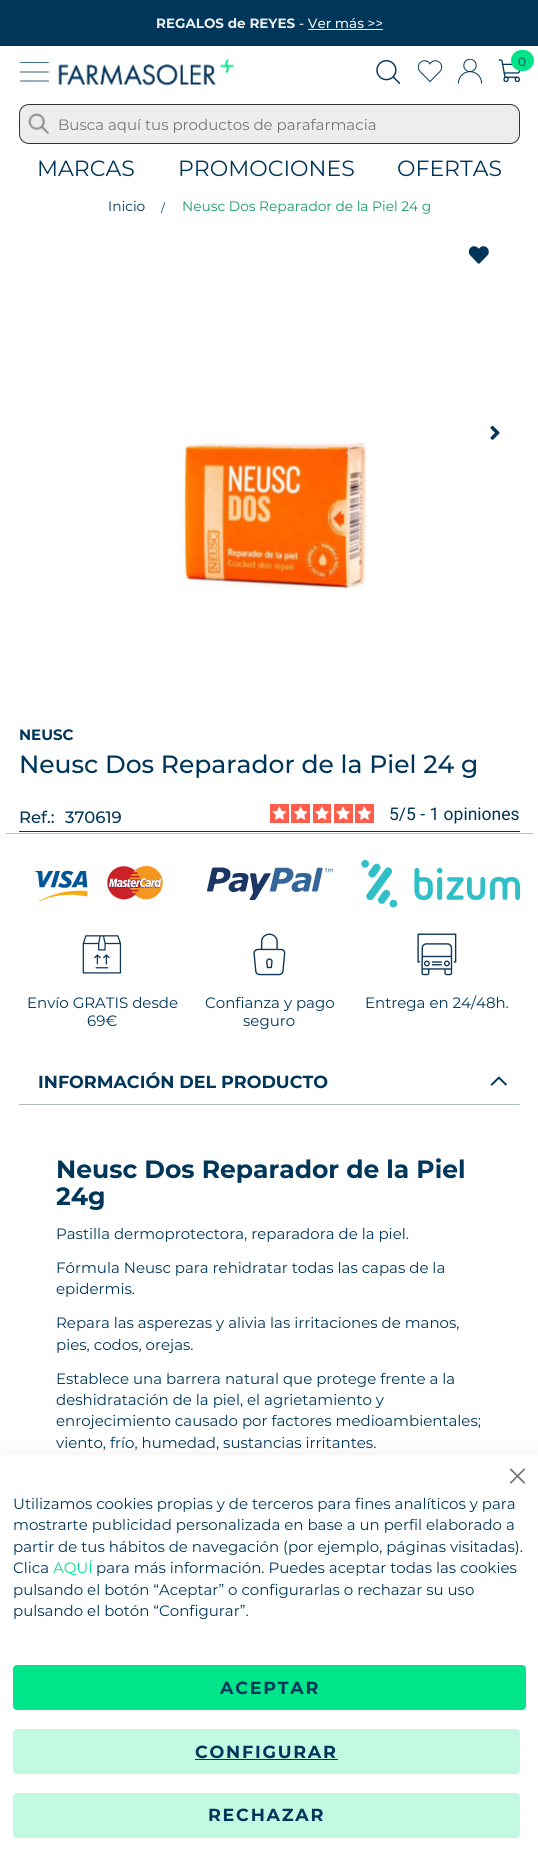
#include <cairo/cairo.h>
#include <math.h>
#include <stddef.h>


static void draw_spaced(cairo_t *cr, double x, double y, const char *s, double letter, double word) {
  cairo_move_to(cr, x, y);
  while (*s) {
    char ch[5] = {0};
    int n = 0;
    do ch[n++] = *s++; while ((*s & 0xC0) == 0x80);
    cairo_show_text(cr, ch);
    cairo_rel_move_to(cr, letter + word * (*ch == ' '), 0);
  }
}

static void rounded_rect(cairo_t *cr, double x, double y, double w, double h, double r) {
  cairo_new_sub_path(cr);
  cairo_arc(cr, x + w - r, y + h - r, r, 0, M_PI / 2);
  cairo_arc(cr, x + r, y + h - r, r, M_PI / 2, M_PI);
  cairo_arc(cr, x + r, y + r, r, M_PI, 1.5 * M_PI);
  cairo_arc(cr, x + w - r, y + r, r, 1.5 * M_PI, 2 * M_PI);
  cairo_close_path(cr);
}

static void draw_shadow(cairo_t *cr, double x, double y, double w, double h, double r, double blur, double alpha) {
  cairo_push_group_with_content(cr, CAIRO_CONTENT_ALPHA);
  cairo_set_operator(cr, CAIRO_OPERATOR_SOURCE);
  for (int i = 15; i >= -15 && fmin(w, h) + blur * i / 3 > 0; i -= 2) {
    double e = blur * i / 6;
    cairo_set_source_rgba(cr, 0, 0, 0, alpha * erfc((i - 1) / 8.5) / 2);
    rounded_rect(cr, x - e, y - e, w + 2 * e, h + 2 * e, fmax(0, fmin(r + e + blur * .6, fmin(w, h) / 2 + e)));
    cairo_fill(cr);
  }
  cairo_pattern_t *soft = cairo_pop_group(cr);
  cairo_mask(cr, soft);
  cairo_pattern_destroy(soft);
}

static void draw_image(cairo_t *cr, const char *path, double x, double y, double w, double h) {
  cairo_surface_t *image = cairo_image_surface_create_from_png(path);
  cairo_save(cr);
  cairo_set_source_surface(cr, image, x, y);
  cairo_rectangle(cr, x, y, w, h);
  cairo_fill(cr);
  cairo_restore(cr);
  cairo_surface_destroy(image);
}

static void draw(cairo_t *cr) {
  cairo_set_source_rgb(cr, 1, 1, 1);
  cairo_paint(cr);
  cairo_set_source_rgb(cr, 0, 54 / 255.0, 89 / 255.0);
  cairo_rectangle(cr, 0, 0, 538, 46);
  cairo_fill(cr);
  cairo_set_source_rgb(cr, 236 / 255.0, 240 / 255.0, 241 / 255.0);
  cairo_rectangle(cr, 308, 29, 75, 1);
  cairo_fill(cr);
  cairo_new_path(cr);
  cairo_move_to(cr, 20.5, 62.5);
  cairo_line_to(cr, 48.5, 62.5);
  cairo_move_to(cr, 20.5, 72);
  cairo_line_to(cr, 48.5, 72);
  cairo_move_to(cr, 20.5, 81);
  cairo_line_to(cr, 48.5, 81);
  cairo_set_source_rgb(cr, 0, 54 / 255.0, 90 / 255.0);
  cairo_set_line_width(cr, 0.8);
  cairo_set_line_cap(cr, CAIRO_LINE_CAP_ROUND);
  cairo_set_line_join(cr, CAIRO_LINE_JOIN_ROUND);
  cairo_stroke(cr);
  draw_image(cr, "images/1.png", 58, 58, 176, 28);
  draw_image(cr, "images/2.png", 376, 60, 24, 24);
  draw_image(cr, "images/3.png", 417, 60, 26, 23);
  draw_image(cr, "images/4.png", 458, 59, 25, 25);
  draw_image(cr, "images/5.png", 498, 59, 23, 24);
  cairo_set_source_rgb(cr, 0, 229 / 255.0, 138 / 255.0);
  rounded_rect(cr, 511, 50, 23, 21, 10.5);
  cairo_fill(cr);
  cairo_set_source_rgb(cr, 237 / 255.0, 237 / 255.0, 237 / 255.0);
  rounded_rect(cr, 19.5, 104.5, 500, 39, 9.5);
  cairo_fill_preserve(cr);
  cairo_set_source_rgb(cr, 51 / 255.0, 51 / 255.0, 51 / 255.0);
  cairo_set_line_width(cr, 1);
  cairo_set_line_cap(cr, CAIRO_LINE_CAP_BUTT);
  cairo_set_line_join(cr, CAIRO_LINE_JOIN_MITER);
  cairo_stroke(cr);
  draw_image(cr, "images/6.png", 28, 113, 21, 22);
  draw_image(cr, "images/7.png", 468, 246, 21, 18);
  draw_image(cr, "images/8.png", 490, 425, 10, 15);
  draw_image(cr, "images/9.png", 182, 441, 185, 149);
  cairo_set_source_rgb(cr, 0, 54 / 255.0, 90 / 255.0);
  cairo_rectangle(cr, 19, 831, 501, 1);
  cairo_fill(cr);
  cairo_set_source_rgb(cr, 1, 94 / 255.0, 77 / 255.0);
  cairo_rectangle(cr, 270, 804, 19, 19);
  cairo_fill(cr);
  draw_image(cr, "images/10.png", 272, 806, 15, 14);
  cairo_rectangle(cr, 291, 804, 19, 19);
  cairo_fill(cr);
  draw_image(cr, "images/11.png", 293, 806, 15, 14);
  cairo_rectangle(cr, 313, 804, 18, 19);
  cairo_fill(cr);
  draw_image(cr, "images/12.png", 314, 806, 15, 14);
  cairo_rectangle(cr, 334, 804, 19, 19);
  cairo_fill(cr);
  draw_image(cr, "images/13.png", 336, 806, 15, 14);
  cairo_rectangle(cr, 355, 804, 19, 19);
  cairo_fill(cr);
  draw_image(cr, "images/10.png", 357, 806, 15, 14);
  cairo_set_source_rgb(cr, 193 / 255.0, 193 / 255.0, 193 / 255.0);
  cairo_rectangle(cr, 6, 833, 527, 1);
  cairo_fill(cr);
  draw_image(cr, "images/14.png", 34, 866, 129, 36);
  draw_image(cr, "images/15.png", 207, 867, 127, 33);
  draw_image(cr, "images/16.png", 361, 860, 159, 48);
  draw_image(cr, "images/17.png", 82, 935, 40, 39);
  draw_image(cr, "images/18.png", 253, 933, 33, 43);
  draw_image(cr, "images/19.png", 417, 933, 40, 43);
  cairo_set_source_rgb(cr, 176 / 255.0, 188 / 255.0, 196 / 255.0);
  cairo_rectangle(cr, 19, 1104, 501, 1);
  cairo_fill(cr);
  draw_image(cr, "images/20.png", 490, 1076, 17, 10);
  cairo_set_source_rgb(cr, 0, 0, 0);
  draw_shadow(cr, 0, 1453, 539, 420, 0, 11, 0.06);
  cairo_set_source_rgb(cr, 1, 1, 1);
  cairo_rectangle(cr, 0, 1455, 538, 420);
  cairo_fill(cr);
  draw_image(cr, "images/21.png", 509, 1468, 17, 16);
  cairo_set_source_rgb(cr, 0, 229 / 255.0, 138 / 255.0);
  rounded_rect(cr, 13, 1665, 513, 45, 4);
  cairo_fill(cr);
  cairo_set_source_rgb(cr, 194 / 255.0, 249 / 255.0, 227 / 255.0);
  rounded_rect(cr, 13, 1729, 507, 45, 4);
  cairo_fill(cr);
  cairo_set_source_rgb(cr, 0, 54 / 255.0, 90 / 255.0);
  cairo_rectangle(cr, 195, 1759, 143, 1);
  cairo_fill(cr);
  cairo_set_source_rgb(cr, 194 / 255.0, 249 / 255.0, 227 / 255.0);
  rounded_rect(cr, 13, 1793, 507, 45, 4);
  cairo_fill(cr);
  cairo_select_font_face(cr, "Montserrat", CAIRO_FONT_SLANT_NORMAL, CAIRO_FONT_WEIGHT_BOLD);
  cairo_set_font_size(cr, 13.5);
  cairo_set_source_rgb(cr, 236 / 255.0, 240 / 255.0, 241 / 255.0);
  cairo_move_to(cr, 156, 28);
  cairo_show_text(cr, "REGALOS de REYES");
  cairo_select_font_face(cr, "Montserrat Medium", CAIRO_FONT_SLANT_NORMAL, CAIRO_FONT_WEIGHT_NORMAL);
  cairo_move_to(cr, 299, 28);
  cairo_show_text(cr, "- Ver más >>");
  cairo_select_font_face(cr, "Montserrat", CAIRO_FONT_SLANT_NORMAL, CAIRO_FONT_WEIGHT_NORMAL);
  cairo_set_font_size(cr, 12);
  cairo_set_source_rgb(cr, 0, 54 / 255.0, 90 / 255.0);
  cairo_move_to(cr, 518, 66);
  cairo_show_text(cr, "0");
  cairo_set_font_size(cr, 15);
  cairo_set_source_rgb(cr, 119 / 255.0, 119 / 255.0, 119 / 255.0);
  cairo_move_to(cr, 58, 130);
  cairo_show_text(cr, "Busca aquí tus productos de parafarmacia");
  cairo_set_font_size(cr, 22);
  cairo_set_source_rgb(cr, 0, 54 / 255.0, 90 / 255.0);
  cairo_move_to(cr, 37, 176);
  cairo_show_text(cr, "MARCAS");
  cairo_move_to(cr, 178, 176);
  cairo_show_text(cr, "PROMOCIONES");
  cairo_move_to(cr, 397, 176);
  cairo_show_text(cr, "OFERTAS");
  cairo_set_font_size(cr, 13.75);
  cairo_move_to(cr, 108, 211);
  cairo_show_text(cr, "Inicio");
  cairo_save(cr);
  cairo_rectangle(cr, 161, 198, 4, 22);
  cairo_clip(cr);
  cairo_set_font_size(cr, 12);
  cairo_move_to(cr, 161, 212);
  cairo_show_text(cr, "/");
  cairo_restore(cr);
  cairo_set_source_rgb(cr, 23 / 255.0, 156 / 255.0, 103 / 255.0);
  cairo_move_to(cr, 182, 211);
  cairo_show_text(cr, "Neusc Dos Reparador de la Piel 24 g");
  cairo_select_font_face(cr, "Montserrat", CAIRO_FONT_SLANT_NORMAL, CAIRO_FONT_WEIGHT_BOLD);
  cairo_set_font_size(cr, 15);
  cairo_set_source_rgb(cr, 0, 54 / 255.0, 90 / 255.0);
  cairo_move_to(cr, 19, 740);
  cairo_show_text(cr, "NEUSC");
  cairo_select_font_face(cr, "Montserrat Medium", CAIRO_FONT_SLANT_NORMAL, CAIRO_FONT_WEIGHT_NORMAL);
  cairo_set_font_size(cr, 25);
  cairo_move_to(cr, 19, 773);
  cairo_show_text(cr, "Neusc Dos Reparador de la Piel 24 g");
  cairo_set_font_size(cr, 16.5);
  cairo_move_to(cr, 19, 823);
  cairo_show_text(cr, "Ref.:");
  cairo_move_to(cr, 65, 823);
  cairo_show_text(cr, "370619");
  cairo_select_font_face(cr, "Roboto", CAIRO_FONT_SLANT_NORMAL, CAIRO_FONT_WEIGHT_NORMAL);
  cairo_set_font_size(cr, 17.5);
  cairo_move_to(cr, 389, 820);
  cairo_show_text(cr, "5/5 - 1 opiniones");
  cairo_select_font_face(cr, "Montserrat", CAIRO_FONT_SLANT_NORMAL, CAIRO_FONT_WEIGHT_NORMAL);
  cairo_set_font_size(cr, 15);
  cairo_move_to(cr, 27, 1008);
  cairo_show_text(cr, "Envío GRATIS desde");
  cairo_move_to(cr, 87, 1026);
  cairo_show_text(cr, "69€");
  cairo_move_to(cr, 205, 1008);
  cairo_show_text(cr, "Confianza y pago");
  cairo_move_to(cr, 243, 1026);
  cairo_show_text(cr, "seguro");
  cairo_move_to(cr, 365, 1008);
  cairo_show_text(cr, "Entrega en 24/48h.");
  cairo_select_font_face(cr, "Montserrat", CAIRO_FONT_SLANT_NORMAL, CAIRO_FONT_WEIGHT_BOLD);
  cairo_set_font_size(cr, 17.5);
  cairo_move_to(cr, 38, 1088);
  cairo_show_text(cr, "INFORMACIÓN DEL PRODUCTO");
  cairo_set_font_size(cr, 25);
  cairo_move_to(cr, 56, 1178);
  cairo_show_text(cr, "Neusc Dos Reparador de la Piel");
  cairo_move_to(cr, 56, 1205);
  cairo_show_text(cr, "24g");
  cairo_select_font_face(cr, "Montserrat", CAIRO_FONT_SLANT_NORMAL, CAIRO_FONT_WEIGHT_NORMAL);
  cairo_set_font_size(cr, 15);
  cairo_move_to(cr, 56, 1239);
  cairo_show_text(cr, "Pastilla dermoprotectora, reparadora de la piel.");
  cairo_move_to(cr, 56, 1273);
  cairo_show_text(cr, "Fórmula Neusc para rehidratar todas las capas de la");
  cairo_move_to(cr, 56, 1294);
  cairo_show_text(cr, "epidermis.");
  cairo_move_to(cr, 56, 1328);
  cairo_show_text(cr, "Repara las asperezas y alivia las irritaciones de manos,");
  cairo_move_to(cr, 56, 1350);
  cairo_show_text(cr, "pies, codos, orejas.");
  cairo_move_to(cr, 56, 1384);
  cairo_show_text(cr, "Establece una barrera natural que protege frente a la");
  cairo_move_to(cr, 56, 1405);
  cairo_show_text(cr, "deshidratación de la piel, el agrietamiento y");
  cairo_move_to(cr, 56, 1426);
  cairo_show_text(cr, "enrojecimiento causado por factores medioambientales;");
  cairo_move_to(cr, 56, 1448);
  cairo_show_text(cr, "viento, frío, humedad, sustancias irritantes.");
  cairo_move_to(cr, 13, 1509);
  cairo_show_text(cr, "Utilizamos cookies propias y de terceros para fines analíticos y para");
  cairo_move_to(cr, 13, 1530);
  cairo_show_text(cr, "mostrarte publicidad personalizada en base a un perfil elaborado a");
  cairo_move_to(cr, 13, 1552);
  cairo_show_text(cr, "partir de tus hábitos de navegación (por ejemplo, páginas visitadas).");
  cairo_move_to(cr, 13, 1573);
  cairo_show_text(cr, "Clica");
  cairo_set_source_rgb(cr, 0, 229 / 255.0, 138 / 255.0);
  cairo_move_to(cr, 53, 1573);
  cairo_show_text(cr, "AQUÍ");
  cairo_set_source_rgb(cr, 0, 54 / 255.0, 90 / 255.0);
  cairo_move_to(cr, 96, 1573);
  cairo_show_text(cr, "para más información. Puedes aceptar todas las cookies");
  cairo_move_to(cr, 13, 1595);
  cairo_show_text(cr, "pulsando el botón “Aceptar” o configurarlas o rechazar su uso");
  cairo_move_to(cr, 13, 1616);
  cairo_show_text(cr, "pulsando el botón “Configurar”.");
  cairo_select_font_face(cr, "Montserrat", CAIRO_FONT_SLANT_NORMAL, CAIRO_FONT_WEIGHT_BOLD);
  cairo_set_font_size(cr, 17.5);
  draw_spaced(cr, 220, 1694, "ACEPTAR", 1.75, 0);
  draw_spaced(cr, 195, 1758, "CONFIGURAR", 1.75, 0);
  draw_spaced(cr, 208, 1821, "RECHAZAR", 1.75, 0);
}

int main(void) {
  cairo_surface_t *surface = cairo_image_surface_create(CAIRO_FORMAT_RGB24, 538, 1875);
  cairo_t *cr = cairo_create(surface);
  cairo_font_options_t *options = cairo_font_options_create();
  cairo_font_options_set_hint_metrics(options, CAIRO_HINT_METRICS_OFF);
  cairo_font_options_set_hint_style(options, CAIRO_HINT_STYLE_NONE);
  cairo_set_font_options(cr, options);
  cairo_set_miter_limit(cr, 4);
  draw(cr);
  cairo_surface_write_to_png(surface, "out.png");
  cairo_font_options_destroy(options);
  cairo_destroy(cr);
  cairo_surface_destroy(surface);
  return 0;
}
